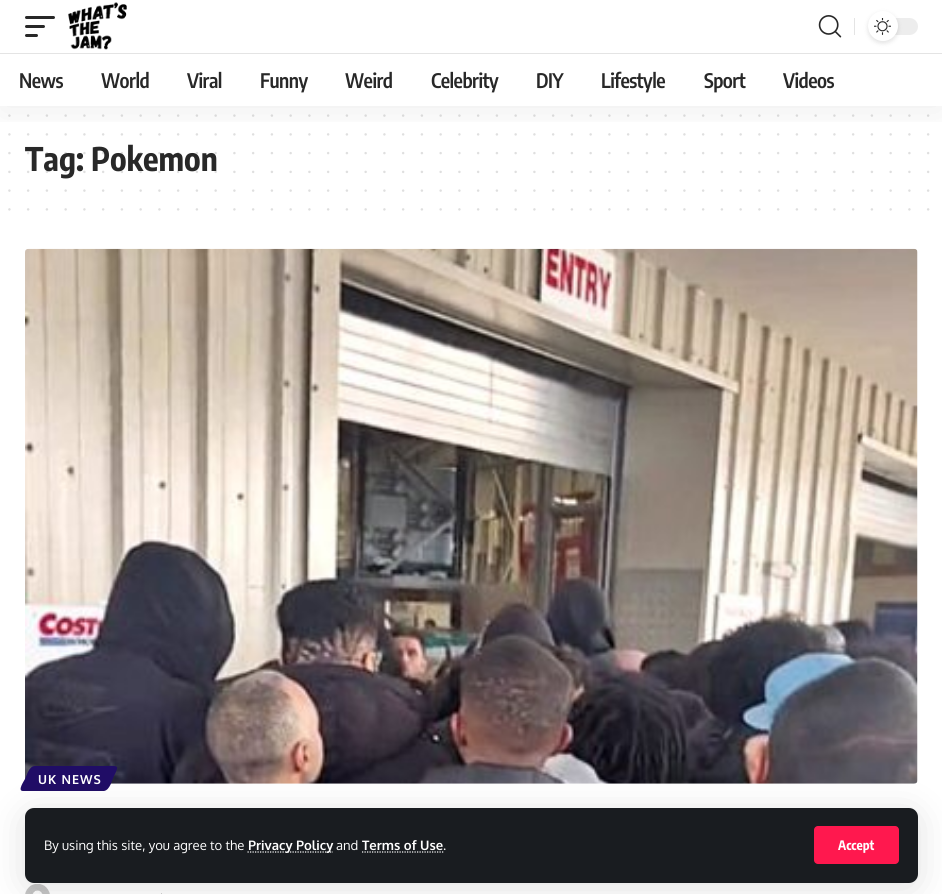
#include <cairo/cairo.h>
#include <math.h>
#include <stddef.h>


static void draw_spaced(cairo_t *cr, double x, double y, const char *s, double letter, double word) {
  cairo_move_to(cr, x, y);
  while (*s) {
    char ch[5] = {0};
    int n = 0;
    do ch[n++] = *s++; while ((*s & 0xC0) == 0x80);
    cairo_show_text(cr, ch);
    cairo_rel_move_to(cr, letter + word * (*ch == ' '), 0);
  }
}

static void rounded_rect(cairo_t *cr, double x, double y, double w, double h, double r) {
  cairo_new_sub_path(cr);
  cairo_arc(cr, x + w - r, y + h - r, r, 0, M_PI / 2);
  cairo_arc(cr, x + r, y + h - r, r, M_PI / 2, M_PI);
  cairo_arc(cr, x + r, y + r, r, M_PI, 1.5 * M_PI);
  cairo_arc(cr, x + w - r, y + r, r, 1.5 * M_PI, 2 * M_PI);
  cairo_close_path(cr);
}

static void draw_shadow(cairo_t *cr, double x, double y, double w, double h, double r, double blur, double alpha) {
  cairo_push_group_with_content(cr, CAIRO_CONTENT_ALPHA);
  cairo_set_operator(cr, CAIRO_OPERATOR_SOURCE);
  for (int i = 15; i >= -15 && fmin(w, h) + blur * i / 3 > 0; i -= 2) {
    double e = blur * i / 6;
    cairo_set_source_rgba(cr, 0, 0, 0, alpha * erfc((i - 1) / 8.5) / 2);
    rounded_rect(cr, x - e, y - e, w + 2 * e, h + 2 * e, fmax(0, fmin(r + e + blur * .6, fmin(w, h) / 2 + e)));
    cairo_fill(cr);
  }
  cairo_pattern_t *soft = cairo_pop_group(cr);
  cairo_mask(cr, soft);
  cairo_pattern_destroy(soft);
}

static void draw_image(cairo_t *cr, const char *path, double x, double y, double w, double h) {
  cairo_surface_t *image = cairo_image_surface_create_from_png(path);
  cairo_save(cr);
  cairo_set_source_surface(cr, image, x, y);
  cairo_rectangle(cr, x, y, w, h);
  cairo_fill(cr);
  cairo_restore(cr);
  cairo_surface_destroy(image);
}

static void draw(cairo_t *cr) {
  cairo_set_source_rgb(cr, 1, 1, 1);
  cairo_paint(cr);
  draw_image(cr, "images/4.png", 25, 248, 893, 536);
  cairo_set_source_rgb(cr, 32 / 255.0, 13 / 255.0, 102 / 255.0);
  cairo_new_path(cr);
  cairo_move_to(cr, 35, 766);
  cairo_line_to(cr, 102, 766);
  cairo_curve_to(cr, 118, 766, 120, 764, 114, 776);
  cairo_curve_to(cr, 112, 780, 110, 790, 104, 791);
  cairo_line_to(cr, 23, 791);
  cairo_curve_to(cr, 17, 791, 24, 781, 25, 779);
  cairo_curve_to(cr, 27, 775, 29, 766, 35, 766);
  cairo_close_path(cr);
  cairo_fill(cr);
  draw_image(cr, "images/5.png", 25, 884, 25, 10);
  cairo_set_source_rgb(cr, 209 / 255.0, 209 / 255.0, 209 / 255.0);
  cairo_rectangle(cr, 161, 893, 1, 1);
  cairo_fill(cr);
  cairo_set_source_rgb(cr, 0, 0, 0);
  draw_shadow(cr, 25, 813, 893, 75, 9, 19, 0.12);
  cairo_set_source_rgb(cr, 25 / 255.0, 28 / 255.0, 32 / 255.0);
  rounded_rect(cr, 25, 808, 893, 75, 9);
  cairo_fill(cr);
  cairo_new_path(cr);
  cairo_move_to(cr, 247.5, 852);
  cairo_line_to(cr, 333, 852);
  cairo_set_source_rgb(cr, 1, 1, 1);
  cairo_set_line_width(cr, 1.2);
  cairo_set_dash(cr, (double[]){1.25, 1.25}, 2, 0);
  cairo_stroke(cr);
  cairo_new_path(cr);
  cairo_move_to(cr, 362, 852);
  cairo_line_to(cr, 443.5, 852);
  cairo_stroke(cr);
  cairo_set_source_rgb(cr, 1, 24 / 255.0, 78 / 255.0);
  rounded_rect(cr, 814, 826, 85, 38, 4);
  cairo_fill(cr);
  cairo_new_path(cr);
  cairo_move_to(cr, 9.4, 115.6);
  cairo_line_to(cr, 928.4, 115.6);
  cairo_set_source_rgb(cr, 223 / 255.0, 223 / 255.0, 223 / 255.0);
  cairo_set_line_width(cr, 2.5);
  cairo_set_line_cap(cr, CAIRO_LINE_CAP_ROUND);
  cairo_set_dash(cr, (double[]){0, 18.75}, 2, 0);
  cairo_stroke(cr);
  cairo_new_path(cr);
  cairo_move_to(cr, 9.4, 134.4);
  cairo_line_to(cr, 928.4, 134.4);
  cairo_stroke(cr);
  cairo_new_path(cr);
  cairo_move_to(cr, 9.4, 190.6);
  cairo_line_to(cr, 928.4, 190.6);
  cairo_stroke(cr);
  cairo_new_path(cr);
  cairo_move_to(cr, 9.4, 209.4);
  cairo_line_to(cr, 928.4, 209.4);
  cairo_stroke(cr);
  cairo_select_font_face(cr, "Oxygen", CAIRO_FONT_SLANT_NORMAL, CAIRO_FONT_WEIGHT_NORMAL);
  cairo_set_font_size(cr, 13.1);
  cairo_set_source_rgb(cr, 1, 1, 1);
  cairo_move_to(cr, 44, 850);
  cairo_show_text(cr, "By using this site, you agree to the");
  cairo_select_font_face(cr, "Oxygen", CAIRO_FONT_SLANT_NORMAL, CAIRO_FONT_WEIGHT_BOLD);
  cairo_move_to(cr, 248, 850);
  cairo_show_text(cr, "Privacy Policy");
  cairo_select_font_face(cr, "Oxygen", CAIRO_FONT_SLANT_NORMAL, CAIRO_FONT_WEIGHT_NORMAL);
  cairo_move_to(cr, 336, 850);
  cairo_show_text(cr, "and");
  cairo_select_font_face(cr, "Oxygen", CAIRO_FONT_SLANT_NORMAL, CAIRO_FONT_WEIGHT_BOLD);
  cairo_move_to(cr, 362, 850);
  cairo_show_text(cr, "Terms of Use");
  cairo_select_font_face(cr, "Oxygen", CAIRO_FONT_SLANT_NORMAL, CAIRO_FONT_WEIGHT_NORMAL);
  cairo_move_to(cr, 443, 850);
  cairo_show_text(cr, ".");
  cairo_select_font_face(cr, "Encode Sans Condensed", CAIRO_FONT_SLANT_NORMAL, CAIRO_FONT_WEIGHT_BOLD);
  cairo_set_font_size(cr, 13);
  cairo_move_to(cr, 838, 850);
  cairo_show_text(cr, "Accept");
  cairo_set_font_size(cr, 32.5);
  cairo_set_source_rgb(cr, 40 / 255.0, 40 / 255.0, 40 / 255.0);
  cairo_move_to(cr, 25, 171);
  cairo_show_text(cr, "Tag: Pokemon");
  cairo_new_path(cr);
  cairo_move_to(cr, 9.4, 153.1);
  cairo_line_to(cr, 928.4, 153.1);
  cairo_set_source_rgba(cr, 40 / 255.0, 40 / 255.0, 40 / 255.0, 0.15);
  cairo_stroke(cr);
  cairo_save(cr);
  cairo_rectangle(cr, 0, 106, 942, 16);
  cairo_clip(cr);
  cairo_set_source_rgb(cr, 0, 0, 0);
  draw_shadow(cr, 0, 5, 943, 106, 0, 19, 0.07);
  cairo_restore(cr);
  cairo_select_font_face(cr, "Encode Sans Condensed SemiBold", CAIRO_FONT_SLANT_NORMAL, CAIRO_FONT_WEIGHT_NORMAL);
  cairo_set_font_size(cr, 20);
  cairo_set_source_rgb(cr, 40 / 255.0, 40 / 255.0, 40 / 255.0);
  draw_spaced(cr, 783, 88, "Videos", -0.5, 0);
  draw_spaced(cr, 704, 88, "Sport", -0.5, 0);
  draw_spaced(cr, 601, 88, "Lifestyle", -0.5, 0);
  draw_spaced(cr, 536, 88, "DIY", -0.5, 0);
  draw_spaced(cr, 431, 88, "Celebrity", -0.5, 0);
  draw_spaced(cr, 345, 88, "Weird", -0.5, 0);
  draw_spaced(cr, 260, 88, "Funny", -0.5, 0);
  draw_spaced(cr, 187, 88, "Viral", -0.5, 0);
  draw_spaced(cr, 101, 88, "World", -0.5, 0);
  draw_spaced(cr, 19, 88, "News", -0.5, 0);
  cairo_set_source_rgb(cr, 228 / 255.0, 228 / 255.0, 228 / 255.0);
  cairo_rectangle(cr, 0, 53, 942, 1);
  cairo_fill(cr);
  cairo_set_source_rgb(cr, 237 / 255.0, 237 / 255.0, 237 / 255.0);
  rounded_rect(cr, 868, 18, 50, 17, 8.5);
  cairo_fill(cr);
  cairo_set_source_rgb(cr, 0, 0, 0);
  draw_shadow(cr, 868, 13, 30, 30, 15, 2.5, 0.12);
  cairo_set_source_rgb(cr, 1, 1, 1);
  cairo_arc(cr, 883, 26, 15, 0, 2 * M_PI);
  cairo_fill(cr);
  draw_image(cr, "images/3.png", 874, 18, 17, 17);
  cairo_set_source_rgb(cr, 228 / 255.0, 228 / 255.0, 228 / 255.0);
  cairo_rectangle(cr, 854, 18, 1, 17);
  cairo_fill(cr);
  draw_image(cr, "images/2.png", 818, 15, 24, 23);
  cairo_set_source_rgb(cr, 40 / 255.0, 40 / 255.0, 40 / 255.0);
  rounded_rect(cr, 25, 34, 13, 3, 1.5);
  cairo_fill(cr);
  rounded_rect(cr, 25, 25, 20, 3, 1.5);
  cairo_fill(cr);
  rounded_rect(cr, 25, 16, 30, 3, 1.5);
  cairo_fill(cr);
  draw_image(cr, "images/1.png", 68, 2, 59, 48);
  cairo_new_path(cr);
  cairo_move_to(cr, 9.4, 171.9);
  cairo_line_to(cr, 928.4, 171.9);
  cairo_set_source_rgba(cr, 40 / 255.0, 40 / 255.0, 40 / 255.0, 0.15);
  cairo_stroke(cr);
  cairo_select_font_face(cr, "Oxygen", CAIRO_FONT_SLANT_NORMAL, CAIRO_FONT_WEIGHT_BOLD);
  cairo_set_font_size(cr, 12.5);
  cairo_set_source_rgb(cr, 1, 1, 1);
  draw_spaced(cr, 38, 784, "UK NEWS", 1, 0);
}

int main(void) {
  cairo_surface_t *surface = cairo_image_surface_create(CAIRO_FORMAT_RGB24, 942, 894);
  cairo_t *cr = cairo_create(surface);
  cairo_font_options_t *options = cairo_font_options_create();
  cairo_font_options_set_hint_metrics(options, CAIRO_HINT_METRICS_OFF);
  cairo_font_options_set_hint_style(options, CAIRO_HINT_STYLE_NONE);
  cairo_set_font_options(cr, options);
  cairo_set_miter_limit(cr, 4);
  draw(cr);
  cairo_surface_write_to_png(surface, "out.png");
  cairo_font_options_destroy(options);
  cairo_destroy(cr);
  cairo_surface_destroy(surface);
  return 0;
}
